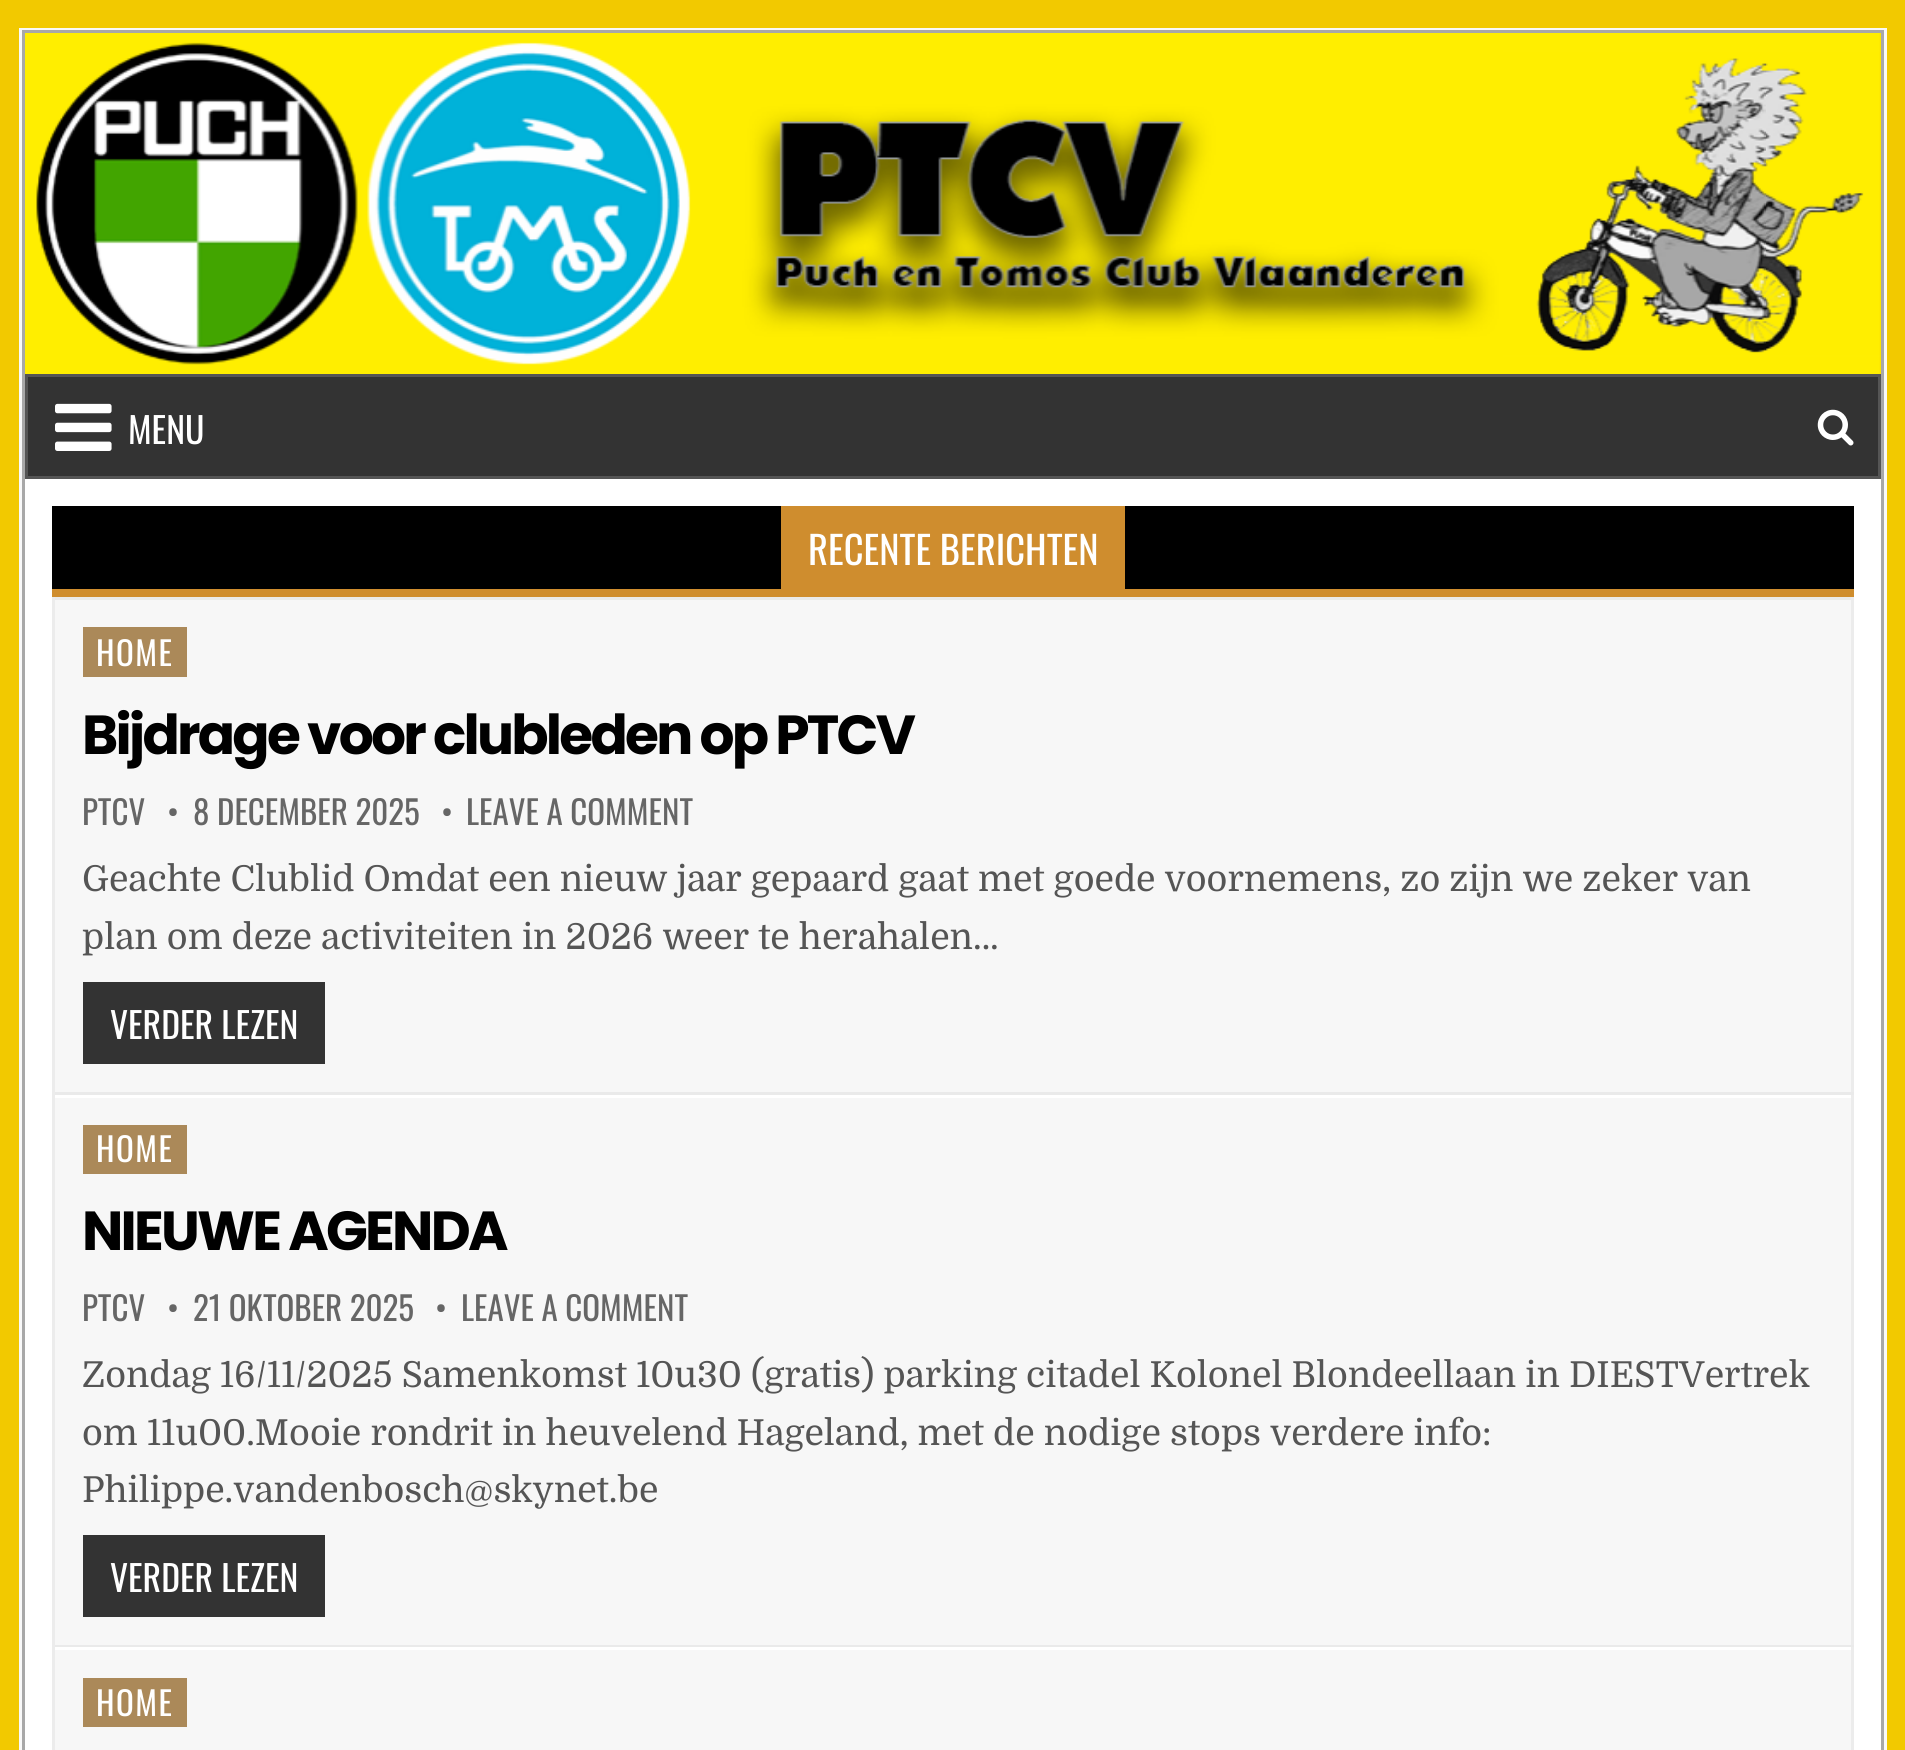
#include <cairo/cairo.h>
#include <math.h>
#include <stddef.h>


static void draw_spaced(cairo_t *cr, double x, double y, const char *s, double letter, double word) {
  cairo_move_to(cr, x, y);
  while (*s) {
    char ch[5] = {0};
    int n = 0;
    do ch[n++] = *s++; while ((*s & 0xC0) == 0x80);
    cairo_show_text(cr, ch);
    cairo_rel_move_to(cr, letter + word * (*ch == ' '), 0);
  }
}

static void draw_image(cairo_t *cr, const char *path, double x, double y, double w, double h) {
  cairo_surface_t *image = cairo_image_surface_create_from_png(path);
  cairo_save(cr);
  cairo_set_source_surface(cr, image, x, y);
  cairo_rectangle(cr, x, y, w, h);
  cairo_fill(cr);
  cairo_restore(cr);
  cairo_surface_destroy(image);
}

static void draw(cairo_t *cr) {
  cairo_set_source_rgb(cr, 242 / 255.0, 201 / 255.0, 0);
  cairo_paint(cr);
  cairo_rectangle(cr, 20.5, 29.5, 1865, 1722);
  cairo_set_source_rgb(cr, 249 / 255.0, 249 / 255.0, 249 / 255.0);
  cairo_set_line_width(cr, 3);
  cairo_stroke(cr);
  cairo_rectangle(cr, 23.5, 31.5, 1859, 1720);
  cairo_set_source_rgb(cr, 168 / 255.0, 168 / 255.0, 168 / 255.0);
  cairo_stroke(cr);
  draw_image(cr, "images/1.png", 25, 33, 1856, 341);
  cairo_set_source_rgb(cr, 51 / 255.0, 51 / 255.0, 51 / 255.0);
  cairo_rectangle(cr, 26.5, 375.5, 1853, 102);
  cairo_fill_preserve(cr);
  cairo_set_source_rgb(cr, 85 / 255.0, 85 / 255.0, 85 / 255.0);
  cairo_stroke(cr);
  draw_image(cr, "images/2.png", 55, 403, 57, 48);
  draw_image(cr, "images/3.png", 1817, 409, 37, 37);
  cairo_set_source_rgb(cr, 1, 1, 1);
  cairo_rectangle(cr, 25, 479, 1856, 1271);
  cairo_fill(cr);
  cairo_set_source_rgb(cr, 0, 0, 0);
  cairo_rectangle(cr, 52, 506, 1802, 83);
  cairo_fill(cr);
  cairo_set_source_rgb(cr, 207 / 255.0, 141 / 255.0, 46 / 255.0);
  cairo_rectangle(cr, 52, 589, 1802, 8);
  cairo_fill(cr);
  cairo_rectangle(cr, 781, 506, 344, 83);
  cairo_fill(cr);
  cairo_set_source_rgb(cr, 247 / 255.0, 247 / 255.0, 247 / 255.0);
  cairo_rectangle(cr, 55, 600, 1796, 492);
  cairo_fill(cr);
  cairo_set_source_rgb(cr, 234 / 255.0, 234 / 255.0, 234 / 255.0);
  cairo_rectangle(cr, 52, 597, 1802, 3);
  cairo_fill(cr);
  cairo_set_source_rgb(cr, 236 / 255.0, 236 / 255.0, 236 / 255.0);
  cairo_rectangle(cr, 1851, 597, 3, 1153);
  cairo_fill(cr);
  cairo_set_source_rgb(cr, 234 / 255.0, 234 / 255.0, 234 / 255.0);
  cairo_rectangle(cr, 52, 1092, 1802, 3);
  cairo_fill(cr);
  cairo_set_source_rgb(cr, 236 / 255.0, 236 / 255.0, 236 / 255.0);
  cairo_rectangle(cr, 52, 597, 3, 498);
  cairo_fill(cr);
  cairo_set_source_rgb(cr, 171 / 255.0, 137 / 255.0, 89 / 255.0);
  cairo_rectangle(cr, 83, 627, 104, 50);
  cairo_fill(cr);
  cairo_set_source_rgb(cr, 51 / 255.0, 51 / 255.0, 51 / 255.0);
  cairo_rectangle(cr, 83, 982, 242, 82);
  cairo_fill(cr);
  cairo_set_source_rgb(cr, 247 / 255.0, 247 / 255.0, 247 / 255.0);
  cairo_rectangle(cr, 55, 1098, 1796, 547);
  cairo_fill(cr);
  cairo_set_source_rgb(cr, 234 / 255.0, 234 / 255.0, 234 / 255.0);
  cairo_rectangle(cr, 52, 1645, 1802, 2);
  cairo_fill(cr);
  cairo_set_source_rgb(cr, 236 / 255.0, 236 / 255.0, 236 / 255.0);
  cairo_rectangle(cr, 52, 1095, 3, 655);
  cairo_fill(cr);
  cairo_set_source_rgb(cr, 171 / 255.0, 137 / 255.0, 89 / 255.0);
  cairo_rectangle(cr, 83, 1125, 104, 49);
  cairo_fill(cr);
  cairo_set_source_rgb(cr, 51 / 255.0, 51 / 255.0, 51 / 255.0);
  cairo_rectangle(cr, 83, 1535, 242, 82);
  cairo_fill(cr);
  cairo_set_source_rgb(cr, 247 / 255.0, 247 / 255.0, 247 / 255.0);
  cairo_rectangle(cr, 55, 1650, 1796, 100);
  cairo_fill(cr);
  cairo_set_source_rgb(cr, 171 / 255.0, 137 / 255.0, 89 / 255.0);
  cairo_rectangle(cr, 83, 1678, 104, 49);
  cairo_fill(cr);
  cairo_select_font_face(cr, "Oswald", CAIRO_FONT_SLANT_NORMAL, CAIRO_FONT_WEIGHT_NORMAL);
  cairo_set_font_size(cr, 35.75);
  cairo_set_source_rgb(cr, 1, 1, 1);
  cairo_move_to(cr, 128, 444);
  cairo_show_text(cr, "MENU");
  cairo_set_font_size(cr, 38.5);
  cairo_move_to(cr, 808, 565);
  cairo_show_text(cr, "RECENTE BERICHTEN");
  cairo_set_font_size(cr, 33);
  draw_spaced(cr, 96, 666, "HOME", 1.5, 0);
  cairo_select_font_face(cr, "Poppins", CAIRO_FONT_SLANT_NORMAL, CAIRO_FONT_WEIGHT_BOLD);
  cairo_set_font_size(cr, 55);
  cairo_set_source_rgb(cr, 0, 0, 0);
  draw_spaced(cr, 82, 754, "Bijdrage voor clubleden op PTCV", -2.75, 0);
  cairo_select_font_face(cr, "Oswald", CAIRO_FONT_SLANT_NORMAL, CAIRO_FONT_WEIGHT_NORMAL);
  cairo_set_font_size(cr, 33);
  cairo_set_source_rgb(cr, 102 / 255.0, 102 / 255.0, 102 / 255.0);
  cairo_move_to(cr, 82, 825);
  cairo_show_text(cr, "PTCV");
  cairo_move_to(cr, 167, 825);
  cairo_show_text(cr, "•");
  cairo_move_to(cr, 193, 825);
  cairo_show_text(cr, "8 DECEMBER 2025");
  cairo_move_to(cr, 441, 825);
  cairo_show_text(cr, "•");
  cairo_move_to(cr, 466, 825);
  cairo_show_text(cr, "LEAVE A COMMENT");
  cairo_select_font_face(cr, "Domine", CAIRO_FONT_SLANT_NORMAL, CAIRO_FONT_WEIGHT_NORMAL);
  cairo_set_font_size(cr, 35.75);
  cairo_set_source_rgb(cr, 85 / 255.0, 85 / 255.0, 85 / 255.0);
  cairo_move_to(cr, 82, 891);
  cairo_show_text(cr, "Geachte Clublid Omdat een nieuw jaar gepaard gaat met goede voornemens, zo zijn we zeker van");
  cairo_move_to(cr, 82, 949);
  cairo_show_text(cr, "plan om deze activiteiten in 2026 weer te herahalen…");
  cairo_select_font_face(cr, "Oswald", CAIRO_FONT_SLANT_NORMAL, CAIRO_FONT_WEIGHT_NORMAL);
  cairo_set_source_rgb(cr, 1, 1, 1);
  cairo_move_to(cr, 110, 1039);
  cairo_show_text(cr, "VERDER LEZEN");
  cairo_set_font_size(cr, 33);
  draw_spaced(cr, 96, 1162, "HOME", 1.5, 0);
  cairo_select_font_face(cr, "Poppins", CAIRO_FONT_SLANT_NORMAL, CAIRO_FONT_WEIGHT_BOLD);
  cairo_set_font_size(cr, 55);
  cairo_set_source_rgb(cr, 0, 0, 0);
  draw_spaced(cr, 82, 1250, "NIEUWE AGENDA", -2.75, 0);
  cairo_select_font_face(cr, "Oswald", CAIRO_FONT_SLANT_NORMAL, CAIRO_FONT_WEIGHT_NORMAL);
  cairo_set_font_size(cr, 33);
  cairo_set_source_rgb(cr, 102 / 255.0, 102 / 255.0, 102 / 255.0);
  cairo_move_to(cr, 82, 1321);
  cairo_show_text(cr, "PTCV");
  cairo_move_to(cr, 167, 1321);
  cairo_show_text(cr, "•");
  cairo_move_to(cr, 193, 1321);
  cairo_show_text(cr, "21 OKTOBER 2025");
  cairo_move_to(cr, 435, 1321);
  cairo_show_text(cr, "•");
  cairo_move_to(cr, 461, 1321);
  cairo_show_text(cr, "LEAVE A COMMENT");
  cairo_select_font_face(cr, "Domine", CAIRO_FONT_SLANT_NORMAL, CAIRO_FONT_WEIGHT_NORMAL);
  cairo_set_font_size(cr, 35.75);
  cairo_set_source_rgb(cr, 85 / 255.0, 85 / 255.0, 85 / 255.0);
  cairo_move_to(cr, 82, 1387);
  cairo_show_text(cr, "Zondag 16/11/2025 Samenkomst 10u30 (gratis) parking citadel Kolonel Blondeellaan in DIESTVertrek");
  cairo_move_to(cr, 82, 1445);
  cairo_show_text(cr, "om 11u00.Mooie rondrit in heuvelend Hageland, met de nodige stops verdere info:");
  cairo_move_to(cr, 82, 1502);
  cairo_show_text(cr, "Philippe.vandenbosch@skynet.be");
  cairo_select_font_face(cr, "Oswald", CAIRO_FONT_SLANT_NORMAL, CAIRO_FONT_WEIGHT_NORMAL);
  cairo_set_source_rgb(cr, 1, 1, 1);
  cairo_move_to(cr, 110, 1592);
  cairo_show_text(cr, "VERDER LEZEN");
  cairo_set_font_size(cr, 33);
  draw_spaced(cr, 96, 1716, "HOME", 1.5, 0);
}

int main(void) {
  cairo_surface_t *surface = cairo_image_surface_create(CAIRO_FORMAT_RGB24, 1905, 1750);
  cairo_t *cr = cairo_create(surface);
  cairo_font_options_t *options = cairo_font_options_create();
  cairo_font_options_set_hint_metrics(options, CAIRO_HINT_METRICS_OFF);
  cairo_font_options_set_hint_style(options, CAIRO_HINT_STYLE_NONE);
  cairo_set_font_options(cr, options);
  cairo_set_miter_limit(cr, 4);
  draw(cr);
  cairo_surface_write_to_png(surface, "out.png");
  cairo_font_options_destroy(options);
  cairo_destroy(cr);
  cairo_surface_destroy(surface);
  return 0;
}
